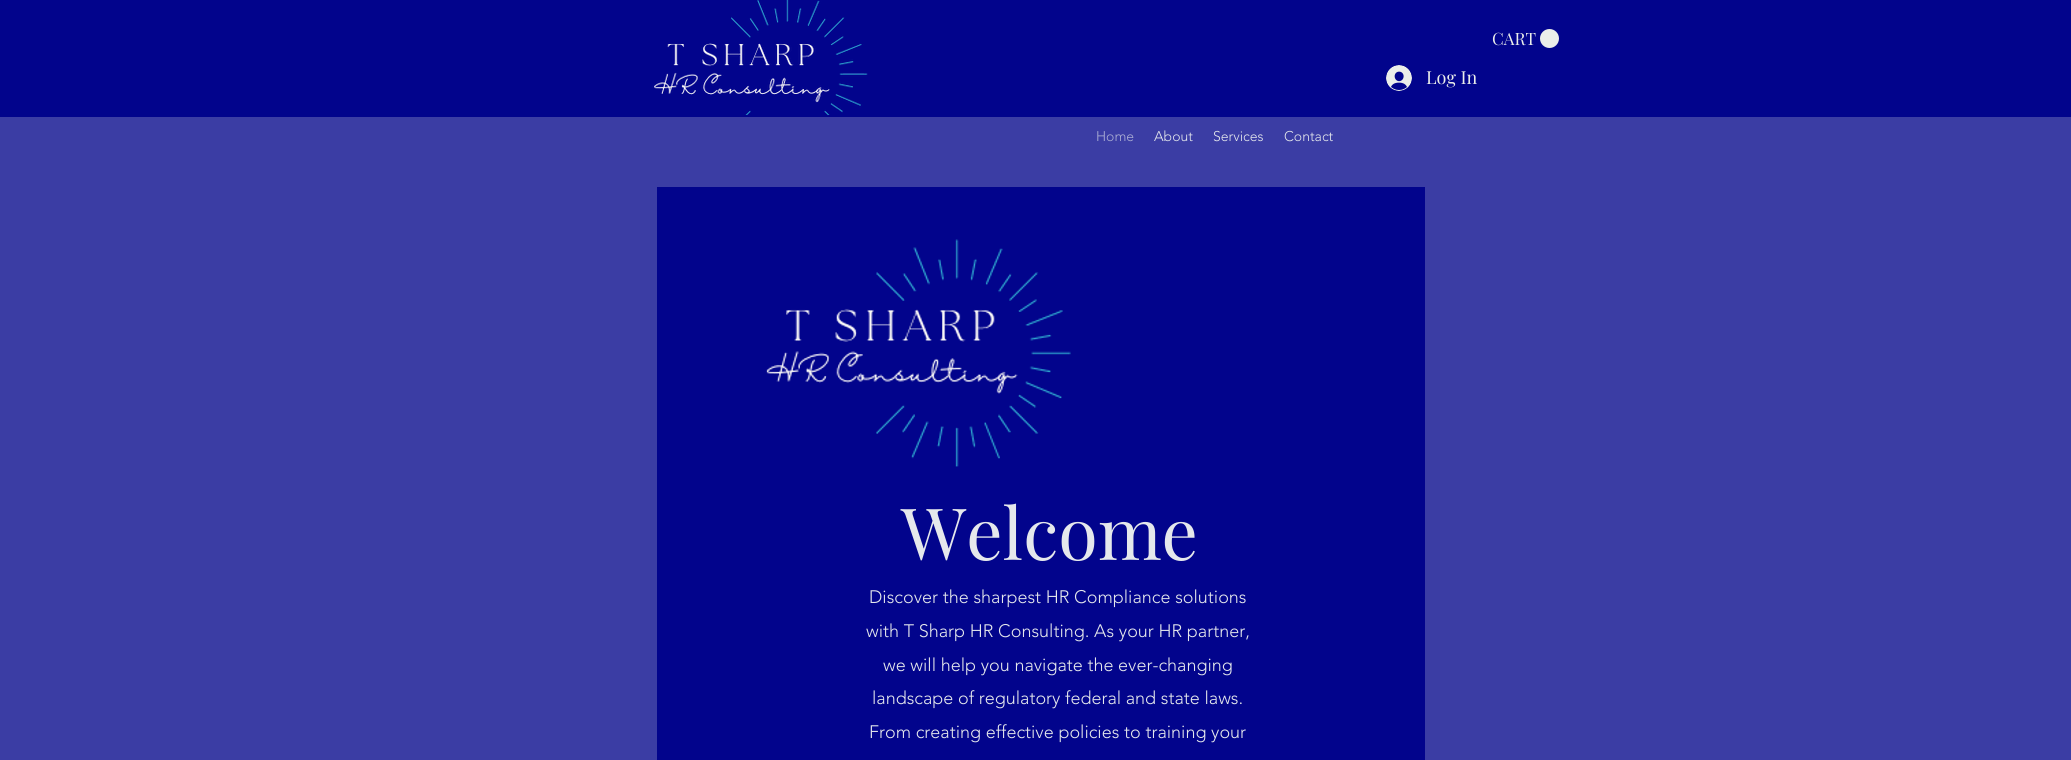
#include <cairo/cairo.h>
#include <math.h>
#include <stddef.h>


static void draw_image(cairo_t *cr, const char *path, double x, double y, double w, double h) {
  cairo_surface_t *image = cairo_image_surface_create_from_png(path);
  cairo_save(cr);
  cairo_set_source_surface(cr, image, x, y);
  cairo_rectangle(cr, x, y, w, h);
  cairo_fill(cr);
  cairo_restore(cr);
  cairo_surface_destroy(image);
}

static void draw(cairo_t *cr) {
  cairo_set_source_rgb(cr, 2 / 255.0, 4 / 255.0, 140 / 255.0);
  cairo_paint(cr);
  draw_image(cr, "images/1.png", 652, 0, 216, 115);
  cairo_set_source_rgb(cr, 235 / 255.0, 238 / 255.0, 234 / 255.0);
  cairo_arc(cr, 1549.5, 38.5, 9.5, 0, 2 * M_PI);
  cairo_fill(cr);
  draw_image(cr, "images/2.png", 1386, 65, 26, 26);
  cairo_set_source_rgb(cr, 59 / 255.0, 61 / 255.0, 164 / 255.0);
  cairo_rectangle(cr, 0, 117, 2071, 643);
  cairo_fill(cr);
  cairo_set_source_rgb(cr, 2 / 255.0, 4 / 255.0, 140 / 255.0);
  cairo_rectangle(cr, 657, 187, 768, 573);
  cairo_fill(cr);
  draw_image(cr, "images/3.png", 766, 239, 305, 228);
  cairo_select_font_face(cr, "Playfair Display", CAIRO_FONT_SLANT_NORMAL, CAIRO_FONT_WEIGHT_NORMAL);
  cairo_set_font_size(cr, 17);
  cairo_set_source_rgb(cr, 235 / 255.0, 238 / 255.0, 234 / 255.0);
  cairo_move_to(cr, 1492, 45);
  cairo_show_text(cr, "CART");
  cairo_set_font_size(cr, 18);
  cairo_move_to(cr, 1426, 84);
  cairo_show_text(cr, "Log In");
  cairo_select_font_face(cr, "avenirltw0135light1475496 Light", CAIRO_FONT_SLANT_NORMAL, CAIRO_FONT_WEIGHT_NORMAL);
  cairo_set_font_size(cr, 14);
  cairo_set_source_rgb(cr, 172 / 255.0, 175 / 255.0, 212 / 255.0);
  cairo_move_to(cr, 1096, 141);
  cairo_show_text(cr, "Home");
  cairo_set_source_rgb(cr, 229 / 255.0, 232 / 255.0, 236 / 255.0);
  cairo_move_to(cr, 1154, 141);
  cairo_show_text(cr, "About");
  cairo_move_to(cr, 1213, 141);
  cairo_show_text(cr, "Services");
  cairo_move_to(cr, 1284, 141);
  cairo_show_text(cr, "Contact");
  cairo_select_font_face(cr, "Playfair Display", CAIRO_FONT_SLANT_NORMAL, CAIRO_FONT_WEIGHT_NORMAL);
  cairo_set_font_size(cr, 72);
  cairo_move_to(cr, 901, 560);
  cairo_show_text(cr, "Welcome");
  cairo_select_font_face(cr, "avenirltw0135light1475496 Light", CAIRO_FONT_SLANT_NORMAL, CAIRO_FONT_WEIGHT_NORMAL);
  cairo_set_font_size(cr, 18);
  cairo_move_to(cr, 869, 603);
  cairo_show_text(cr, "Discover the sharpest HR Compliance solutions");
  cairo_move_to(cr, 866, 637);
  cairo_show_text(cr, "with T Sharp HR Consulting. As your HR partner,");
  cairo_move_to(cr, 883, 671);
  cairo_show_text(cr, "we will help you navigate the ever-changing");
  cairo_move_to(cr, 872, 704);
  cairo_show_text(cr, "landscape of regulatory federal and state laws.");
  cairo_move_to(cr, 869, 738);
  cairo_show_text(cr, "From creating effective policies to training your");
}

int main(void) {
  cairo_surface_t *surface = cairo_image_surface_create(CAIRO_FORMAT_RGB24, 2071, 760);
  cairo_t *cr = cairo_create(surface);
  cairo_font_options_t *options = cairo_font_options_create();
  cairo_font_options_set_hint_metrics(options, CAIRO_HINT_METRICS_OFF);
  cairo_font_options_set_hint_style(options, CAIRO_HINT_STYLE_NONE);
  cairo_set_font_options(cr, options);
  cairo_set_miter_limit(cr, 4);
  draw(cr);
  cairo_surface_write_to_png(surface, "out.png");
  cairo_font_options_destroy(options);
  cairo_destroy(cr);
  cairo_surface_destroy(surface);
  return 0;
}
